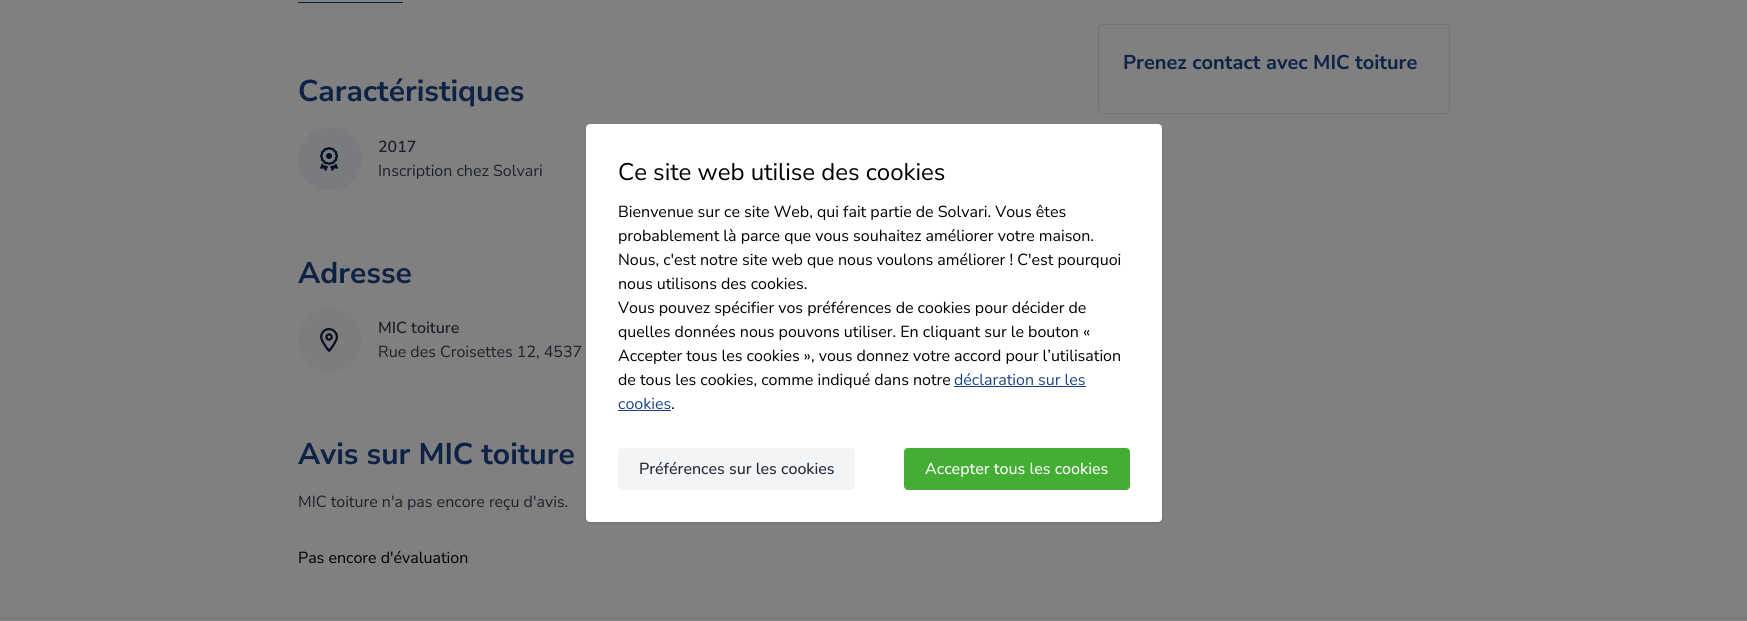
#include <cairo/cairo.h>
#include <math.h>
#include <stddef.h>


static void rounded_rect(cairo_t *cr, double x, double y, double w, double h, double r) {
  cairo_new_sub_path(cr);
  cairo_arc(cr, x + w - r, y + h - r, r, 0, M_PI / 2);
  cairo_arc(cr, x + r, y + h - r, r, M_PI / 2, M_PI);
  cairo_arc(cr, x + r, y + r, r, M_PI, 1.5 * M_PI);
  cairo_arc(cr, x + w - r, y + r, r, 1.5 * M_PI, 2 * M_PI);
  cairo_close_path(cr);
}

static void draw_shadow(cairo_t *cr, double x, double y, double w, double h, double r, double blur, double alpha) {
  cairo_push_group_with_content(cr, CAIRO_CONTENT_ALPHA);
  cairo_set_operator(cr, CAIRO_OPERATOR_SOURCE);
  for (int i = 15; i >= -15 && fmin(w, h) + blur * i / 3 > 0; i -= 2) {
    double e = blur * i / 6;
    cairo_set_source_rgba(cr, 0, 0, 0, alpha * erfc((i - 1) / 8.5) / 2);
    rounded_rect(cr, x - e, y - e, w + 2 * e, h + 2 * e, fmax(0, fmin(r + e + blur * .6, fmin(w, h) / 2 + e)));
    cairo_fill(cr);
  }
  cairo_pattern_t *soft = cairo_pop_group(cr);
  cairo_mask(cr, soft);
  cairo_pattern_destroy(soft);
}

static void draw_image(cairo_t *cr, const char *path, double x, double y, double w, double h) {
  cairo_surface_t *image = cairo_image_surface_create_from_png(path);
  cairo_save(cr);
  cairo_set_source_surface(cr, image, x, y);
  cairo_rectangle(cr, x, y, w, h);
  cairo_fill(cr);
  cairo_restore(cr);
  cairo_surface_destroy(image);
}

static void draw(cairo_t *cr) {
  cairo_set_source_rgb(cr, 128 / 255.0, 128 / 255.0, 128 / 255.0);
  cairo_paint(cr);
  rounded_rect(cr, 1098.5, 24.5, 351, 89, 3.5);
  cairo_set_source_rgb(cr, 115 / 255.0, 116 / 255.0, 118 / 255.0);
  cairo_set_line_width(cr, 1);
  cairo_stroke(cr);
  cairo_set_source_rgb(cr, 13 / 255.0, 34 / 255.0, 69 / 255.0);
  cairo_rectangle(cr, 298, 2, 105, 1);
  cairo_fill(cr);
  cairo_set_source_rgb(cr, 121 / 255.0, 123 / 255.0, 127 / 255.0);
  cairo_arc(cr, 330, 159, 32, 0, 2 * M_PI);
  cairo_fill(cr);
  draw_image(cr, "images/1.png", 320, 147, 18, 24);
  cairo_set_source_rgb(cr, 125 / 255.0, 125 / 255.0, 126 / 255.0);
  cairo_arc(cr, 330, 340, 32, 0, 2 * M_PI);
  cairo_fill(cr);
  draw_image(cr, "images/2.png", 320, 328, 18, 24);
  cairo_set_source_rgb(cr, 0, 0, 0);
  draw_shadow(cr, 587, 126, 574, 396, 3, 1, 0.1);
  draw_shadow(cr, 586, 125, 576, 398, 4, 1.5, 0.1);
  cairo_set_source_rgb(cr, 1, 1, 1);
  rounded_rect(cr, 586, 124, 576, 398, 4);
  cairo_fill(cr);
  cairo_set_source_rgb(cr, 26 / 255.0, 67 / 255.0, 137 / 255.0);
  cairo_rectangle(cr, 954, 386, 132, 1);
  cairo_fill(cr);
  cairo_rectangle(cr, 618, 410, 53, 1);
  cairo_fill(cr);
  cairo_set_source_rgb(cr, 243 / 255.0, 244 / 255.0, 246 / 255.0);
  rounded_rect(cr, 618, 448, 237, 42, 4);
  cairo_fill(cr);
  cairo_set_source_rgb(cr, 68 / 255.0, 173 / 255.0, 52 / 255.0);
  rounded_rect(cr, 904, 448, 226, 42, 4);
  cairo_fill(cr);
  cairo_set_source_rgb(cr, 115 / 255.0, 116 / 255.0, 118 / 255.0);
  cairo_rectangle(cr, 0, 618, 1747, 1);
  cairo_fill(cr);
  cairo_select_font_face(cr, "Nunito Sans", CAIRO_FONT_SLANT_NORMAL, CAIRO_FONT_WEIGHT_BOLD);
  cairo_set_font_size(cr, 20);
  cairo_set_source_rgb(cr, 13 / 255.0, 34 / 255.0, 69 / 255.0);
  cairo_move_to(cr, 1123, 69);
  cairo_show_text(cr, "Prenez contact avec MIC toiture");
  cairo_set_font_size(cr, 30);
  cairo_move_to(cr, 298, 101);
  cairo_show_text(cr, "Caractéristiques");
  cairo_select_font_face(cr, "Nunito Sans SemiBold", CAIRO_FONT_SLANT_NORMAL, CAIRO_FONT_WEIGHT_NORMAL);
  cairo_set_font_size(cr, 16);
  cairo_set_source_rgb(cr, 28 / 255.0, 33 / 255.0, 41 / 255.0);
  cairo_move_to(cr, 378, 152);
  cairo_show_text(cr, "2017");
  cairo_select_font_face(cr, "Nunito Sans", CAIRO_FONT_SLANT_NORMAL, CAIRO_FONT_WEIGHT_NORMAL);
  cairo_move_to(cr, 378, 176);
  cairo_show_text(cr, "Inscription chez Solvari");
  cairo_select_font_face(cr, "Nunito Sans", CAIRO_FONT_SLANT_NORMAL, CAIRO_FONT_WEIGHT_BOLD);
  cairo_set_font_size(cr, 30);
  cairo_set_source_rgb(cr, 13 / 255.0, 34 / 255.0, 69 / 255.0);
  cairo_move_to(cr, 298, 283);
  cairo_show_text(cr, "Adresse");
  cairo_select_font_face(cr, "Nunito Sans SemiBold", CAIRO_FONT_SLANT_NORMAL, CAIRO_FONT_WEIGHT_NORMAL);
  cairo_set_font_size(cr, 16);
  cairo_set_source_rgb(cr, 28 / 255.0, 33 / 255.0, 41 / 255.0);
  cairo_move_to(cr, 378, 333);
  cairo_show_text(cr, "MIC toiture");
  cairo_select_font_face(cr, "Nunito Sans", CAIRO_FONT_SLANT_NORMAL, CAIRO_FONT_WEIGHT_NORMAL);
  cairo_move_to(cr, 378, 357);
  cairo_show_text(cr, "Rue des Croisettes 12, 4537");
  cairo_select_font_face(cr, "Nunito Sans", CAIRO_FONT_SLANT_NORMAL, CAIRO_FONT_WEIGHT_BOLD);
  cairo_set_font_size(cr, 30);
  cairo_set_source_rgb(cr, 13 / 255.0, 34 / 255.0, 69 / 255.0);
  cairo_move_to(cr, 298, 464);
  cairo_show_text(cr, "Avis sur MIC toiture");
  cairo_select_font_face(cr, "Nunito Sans", CAIRO_FONT_SLANT_NORMAL, CAIRO_FONT_WEIGHT_NORMAL);
  cairo_set_font_size(cr, 16);
  cairo_set_source_rgb(cr, 28 / 255.0, 33 / 255.0, 41 / 255.0);
  cairo_move_to(cr, 298, 507);
  cairo_show_text(cr, "MIC toiture n'a pas encore reçu d'avis.");
  cairo_set_source_rgb(cr, 0, 0, 0);
  cairo_move_to(cr, 298, 563);
  cairo_show_text(cr, "Pas encore d'évaluation");
  cairo_set_font_size(cr, 24);
  cairo_move_to(cr, 618, 180);
  cairo_show_text(cr, "Ce site web utilise des cookies");
  cairo_set_font_size(cr, 16);
  cairo_move_to(cr, 618, 217);
  cairo_show_text(cr, "Bienvenue sur ce site Web, qui fait partie de Solvari. Vous êtes");
  cairo_move_to(cr, 618, 241);
  cairo_show_text(cr, "probablement là parce que vous souhaitez améliorer votre maison.");
  cairo_move_to(cr, 618, 265);
  cairo_show_text(cr, "Nous, c'est notre site web que nous voulons améliorer ! C'est pourquoi");
  cairo_move_to(cr, 618, 289);
  cairo_show_text(cr, "nous utilisons des cookies.");
  cairo_move_to(cr, 618, 313);
  cairo_show_text(cr, "Vous pouvez spécifier vos préférences de cookies pour décider de");
  cairo_move_to(cr, 618, 337);
  cairo_show_text(cr, "quelles données nous pouvons utiliser. En cliquant sur le bouton «");
  cairo_move_to(cr, 618, 361);
  cairo_show_text(cr, "Accepter tous les cookies », vous donnez votre accord pour l’utilisation");
  cairo_move_to(cr, 618, 385);
  cairo_show_text(cr, "de tous les cookies, comme indiqué dans notre");
  cairo_set_source_rgb(cr, 26 / 255.0, 67 / 255.0, 137 / 255.0);
  cairo_move_to(cr, 954, 385);
  cairo_show_text(cr, "déclaration sur les");
  cairo_move_to(cr, 618, 409);
  cairo_show_text(cr, "cookies");
  cairo_set_source_rgb(cr, 0, 0, 0);
  cairo_move_to(cr, 671, 409);
  cairo_show_text(cr, ".");
  cairo_select_font_face(cr, "Nunito Sans Medium", CAIRO_FONT_SLANT_NORMAL, CAIRO_FONT_WEIGHT_NORMAL);
  cairo_set_source_rgb(cr, 31 / 255.0, 41 / 255.0, 55 / 255.0);
  cairo_move_to(cr, 639, 474);
  cairo_show_text(cr, "Préférences sur les cookies");
  cairo_set_source_rgb(cr, 1, 1, 1);
  cairo_move_to(cr, 925, 474);
  cairo_show_text(cr, "Accepter tous les cookies");
}

int main(void) {
  cairo_surface_t *surface = cairo_image_surface_create(CAIRO_FORMAT_RGB24, 1747, 621);
  cairo_t *cr = cairo_create(surface);
  cairo_font_options_t *options = cairo_font_options_create();
  cairo_font_options_set_hint_metrics(options, CAIRO_HINT_METRICS_OFF);
  cairo_font_options_set_hint_style(options, CAIRO_HINT_STYLE_NONE);
  cairo_set_font_options(cr, options);
  cairo_set_miter_limit(cr, 4);
  draw(cr);
  cairo_surface_write_to_png(surface, "out.png");
  cairo_font_options_destroy(options);
  cairo_destroy(cr);
  cairo_surface_destroy(surface);
  return 0;
}
